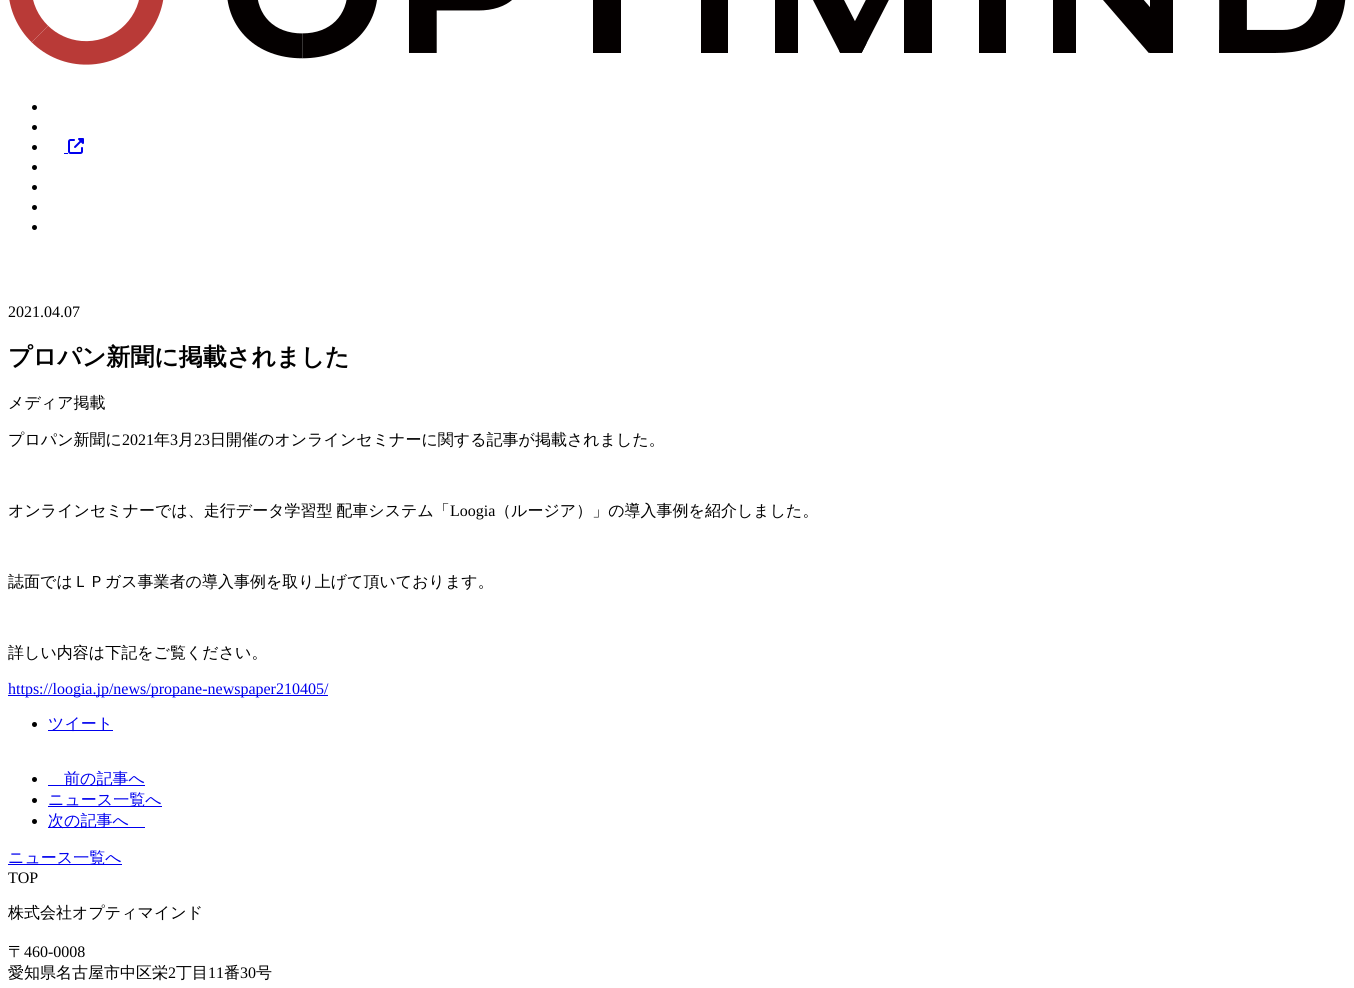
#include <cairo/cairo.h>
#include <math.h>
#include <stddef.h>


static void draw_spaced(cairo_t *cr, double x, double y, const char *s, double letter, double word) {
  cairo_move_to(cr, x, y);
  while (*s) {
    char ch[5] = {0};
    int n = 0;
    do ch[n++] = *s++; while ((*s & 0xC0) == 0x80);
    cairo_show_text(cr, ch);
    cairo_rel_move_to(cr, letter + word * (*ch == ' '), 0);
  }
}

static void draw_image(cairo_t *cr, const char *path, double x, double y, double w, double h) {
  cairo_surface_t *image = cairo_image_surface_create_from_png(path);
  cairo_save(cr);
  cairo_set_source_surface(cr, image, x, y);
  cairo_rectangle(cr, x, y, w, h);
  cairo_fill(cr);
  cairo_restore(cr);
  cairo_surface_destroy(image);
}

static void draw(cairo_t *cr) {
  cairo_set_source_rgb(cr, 1, 1, 1);
  cairo_paint(cr);
  draw_image(cr, "images/1.png", 9, 0, 1337, 65);
  cairo_set_source_rgb(cr, 0, 0, 0);
  cairo_arc(cr, 34.5, 107.5, 2.5, 0, 2 * M_PI);
  cairo_fill(cr);
  cairo_arc(cr, 34.5, 127.5, 2.5, 0, 2 * M_PI);
  cairo_fill(cr);
  cairo_arc(cr, 34.5, 147.5, 2.5, 0, 2 * M_PI);
  cairo_fill(cr);
  cairo_set_source_rgb(cr, 0, 0, 238 / 255.0);
  cairo_rectangle(cr, 64, 153, 4, 1);
  cairo_fill(cr);
  draw_image(cr, "images/2.png", 68, 138, 16, 16);
  cairo_set_source_rgb(cr, 0, 0, 0);
  cairo_arc(cr, 34.5, 167.5, 2.5, 0, 2 * M_PI);
  cairo_fill(cr);
  cairo_arc(cr, 34.5, 187.5, 2.5, 0, 2 * M_PI);
  cairo_fill(cr);
  cairo_arc(cr, 34.5, 207.5, 2.5, 0, 2 * M_PI);
  cairo_fill(cr);
  cairo_arc(cr, 34.5, 227.5, 2.5, 0, 2 * M_PI);
  cairo_fill(cr);
  cairo_set_source_rgb(cr, 0, 0, 238 / 255.0);
  cairo_rectangle(cr, 8, 695, 320, 1);
  cairo_fill(cr);
  cairo_set_source_rgb(cr, 0, 0, 0);
  cairo_arc(cr, 34.5, 724.5, 2.5, 0, 2 * M_PI);
  cairo_fill(cr);
  cairo_set_source_rgb(cr, 0, 0, 238 / 255.0);
  cairo_rectangle(cr, 48, 730, 65, 1);
  cairo_fill(cr);
  cairo_set_source_rgb(cr, 0, 0, 0);
  cairo_arc(cr, 34.5, 779.5, 2.5, 0, 2 * M_PI);
  cairo_fill(cr);
  cairo_set_source_rgb(cr, 0, 0, 238 / 255.0);
  cairo_rectangle(cr, 48, 785, 97, 1);
  cairo_fill(cr);
  cairo_set_source_rgb(cr, 0, 0, 0);
  cairo_arc(cr, 34.5, 800.5, 2.5, 0, 2 * M_PI);
  cairo_fill(cr);
  cairo_set_source_rgb(cr, 0, 0, 238 / 255.0);
  cairo_rectangle(cr, 48, 806, 114, 1);
  cairo_fill(cr);
  cairo_set_source_rgb(cr, 0, 0, 0);
  cairo_arc(cr, 34.5, 821.5, 2.5, 0, 2 * M_PI);
  cairo_fill(cr);
  cairo_set_source_rgb(cr, 0, 0, 238 / 255.0);
  cairo_rectangle(cr, 48, 827, 97, 1);
  cairo_fill(cr);
  cairo_rectangle(cr, 8, 864, 114, 1);
  cairo_fill(cr);
  cairo_select_font_face(cr, "Liberation Serif", CAIRO_FONT_SLANT_NORMAL, CAIRO_FONT_WEIGHT_NORMAL);
  cairo_set_font_size(cr, 16);
  cairo_set_source_rgb(cr, 0, 0, 0);
  cairo_move_to(cr, 8, 317);
  cairo_show_text(cr, "2021.04.07");
  cairo_select_font_face(cr, "WenQuanYi Zen Hei", CAIRO_FONT_SLANT_NORMAL, CAIRO_FONT_WEIGHT_BOLD);
  cairo_set_font_size(cr, 24);
  cairo_move_to(cr, 8, 365);
  cairo_show_text(cr, "プロパン新聞に掲載されました");
  cairo_select_font_face(cr, "WenQuanYi Zen Hei Medium", CAIRO_FONT_SLANT_NORMAL, CAIRO_FONT_WEIGHT_NORMAL);
  cairo_set_font_size(cr, 16);
  cairo_move_to(cr, 8, 408);
  cairo_show_text(cr, "メディア掲載");
  cairo_move_to(cr, 8, 445);
  cairo_show_text(cr, "プロパン新聞に");
  cairo_select_font_face(cr, "Liberation Serif", CAIRO_FONT_SLANT_NORMAL, CAIRO_FONT_WEIGHT_NORMAL);
  cairo_move_to(cr, 122, 445);
  cairo_show_text(cr, "2021");
  cairo_select_font_face(cr, "WenQuanYi Zen Hei Medium", CAIRO_FONT_SLANT_NORMAL, CAIRO_FONT_WEIGHT_NORMAL);
  cairo_move_to(cr, 154, 445);
  cairo_show_text(cr, "年");
  cairo_select_font_face(cr, "Liberation Serif", CAIRO_FONT_SLANT_NORMAL, CAIRO_FONT_WEIGHT_NORMAL);
  cairo_move_to(cr, 170, 445);
  cairo_show_text(cr, "3");
  cairo_select_font_face(cr, "WenQuanYi Zen Hei Medium", CAIRO_FONT_SLANT_NORMAL, CAIRO_FONT_WEIGHT_NORMAL);
  cairo_move_to(cr, 178, 445);
  cairo_show_text(cr, "月");
  cairo_select_font_face(cr, "Liberation Serif", CAIRO_FONT_SLANT_NORMAL, CAIRO_FONT_WEIGHT_NORMAL);
  cairo_move_to(cr, 194, 445);
  cairo_show_text(cr, "23");
  cairo_select_font_face(cr, "WenQuanYi Zen Hei Medium", CAIRO_FONT_SLANT_NORMAL, CAIRO_FONT_WEIGHT_NORMAL);
  cairo_move_to(cr, 210, 445);
  cairo_show_text(cr, "日開催のオンラインセミナーに関する記事が掲載されました。");
  draw_spaced(cr, 8, 516, "オンラインセミナーでは、走行データ学習型 配車システム「", 0, -1);
  cairo_select_font_face(cr, "Liberation Serif", CAIRO_FONT_SLANT_NORMAL, CAIRO_FONT_WEIGHT_NORMAL);
  cairo_move_to(cr, 450, 516);
  cairo_show_text(cr, "Loogia");
  cairo_select_font_face(cr, "WenQuanYi Zen Hei Medium", CAIRO_FONT_SLANT_NORMAL, CAIRO_FONT_WEIGHT_NORMAL);
  cairo_move_to(cr, 495, 516);
  cairo_show_text(cr, "（ルージア）」の導入事例を紹介しました。");
  cairo_move_to(cr, 8, 587);
  cairo_show_text(cr, "誌面ではＬＰガス事業者の導入事例を取り上げて頂いております。");
  cairo_move_to(cr, 8, 658);
  cairo_show_text(cr, "詳しい内容は下記をご覧ください。");
  cairo_select_font_face(cr, "Liberation Serif", CAIRO_FONT_SLANT_NORMAL, CAIRO_FONT_WEIGHT_NORMAL);
  cairo_set_source_rgb(cr, 0, 0, 238 / 255.0);
  cairo_move_to(cr, 8, 694);
  cairo_show_text(cr, "https://loogia.jp/news/propane-newspaper210405/");
  cairo_select_font_face(cr, "WenQuanYi Zen Hei Medium", CAIRO_FONT_SLANT_NORMAL, CAIRO_FONT_WEIGHT_NORMAL);
  cairo_move_to(cr, 48, 729);
  cairo_show_text(cr, "ツイート");
  cairo_move_to(cr, 64, 784);
  cairo_show_text(cr, "前の記事へ");
  cairo_move_to(cr, 48, 805);
  cairo_show_text(cr, "ニュース一覧へ");
  cairo_move_to(cr, 48, 826);
  cairo_show_text(cr, "次の記事へ");
  cairo_move_to(cr, 8, 863);
  cairo_show_text(cr, "ニュース一覧へ");
  cairo_select_font_face(cr, "Liberation Serif", CAIRO_FONT_SLANT_NORMAL, CAIRO_FONT_WEIGHT_NORMAL);
  cairo_set_source_rgb(cr, 0, 0, 0);
  cairo_move_to(cr, 8, 883);
  cairo_show_text(cr, "TOP");
  cairo_select_font_face(cr, "WenQuanYi Zen Hei Medium", CAIRO_FONT_SLANT_NORMAL, CAIRO_FONT_WEIGHT_NORMAL);
  cairo_move_to(cr, 8, 918);
  cairo_show_text(cr, "株式会社オプティマインド");
  cairo_move_to(cr, 8, 957);
  cairo_show_text(cr, "〒");
  cairo_select_font_face(cr, "Liberation Serif", CAIRO_FONT_SLANT_NORMAL, CAIRO_FONT_WEIGHT_NORMAL);
  cairo_move_to(cr, 24, 957);
  cairo_show_text(cr, "460-0008");
  cairo_select_font_face(cr, "WenQuanYi Zen Hei Medium", CAIRO_FONT_SLANT_NORMAL, CAIRO_FONT_WEIGHT_NORMAL);
  cairo_move_to(cr, 8, 978);
  cairo_show_text(cr, "愛知県名古屋市中区栄");
  cairo_select_font_face(cr, "Liberation Serif", CAIRO_FONT_SLANT_NORMAL, CAIRO_FONT_WEIGHT_NORMAL);
  cairo_move_to(cr, 168, 978);
  cairo_show_text(cr, "2");
  cairo_select_font_face(cr, "WenQuanYi Zen Hei Medium", CAIRO_FONT_SLANT_NORMAL, CAIRO_FONT_WEIGHT_NORMAL);
  cairo_move_to(cr, 176, 978);
  cairo_show_text(cr, "丁目");
  cairo_select_font_face(cr, "Liberation Serif", CAIRO_FONT_SLANT_NORMAL, CAIRO_FONT_WEIGHT_NORMAL);
  cairo_move_to(cr, 208, 978);
  cairo_show_text(cr, "11");
  cairo_select_font_face(cr, "WenQuanYi Zen Hei Medium", CAIRO_FONT_SLANT_NORMAL, CAIRO_FONT_WEIGHT_NORMAL);
  cairo_move_to(cr, 224, 978);
  cairo_show_text(cr, "番");
  cairo_select_font_face(cr, "Liberation Serif", CAIRO_FONT_SLANT_NORMAL, CAIRO_FONT_WEIGHT_NORMAL);
  cairo_move_to(cr, 240, 978);
  cairo_show_text(cr, "30");
  cairo_select_font_face(cr, "WenQuanYi Zen Hei Medium", CAIRO_FONT_SLANT_NORMAL, CAIRO_FONT_WEIGHT_NORMAL);
  cairo_move_to(cr, 256, 978);
  cairo_show_text(cr, "号");
}

int main(void) {
  cairo_surface_t *surface = cairo_image_surface_create(CAIRO_FORMAT_RGB24, 1354, 988);
  cairo_t *cr = cairo_create(surface);
  cairo_font_options_t *options = cairo_font_options_create();
  cairo_font_options_set_hint_metrics(options, CAIRO_HINT_METRICS_OFF);
  cairo_font_options_set_hint_style(options, CAIRO_HINT_STYLE_NONE);
  cairo_set_font_options(cr, options);
  cairo_set_miter_limit(cr, 4);
  draw(cr);
  cairo_surface_write_to_png(surface, "out.png");
  cairo_font_options_destroy(options);
  cairo_destroy(cr);
  cairo_surface_destroy(surface);
  return 0;
}
